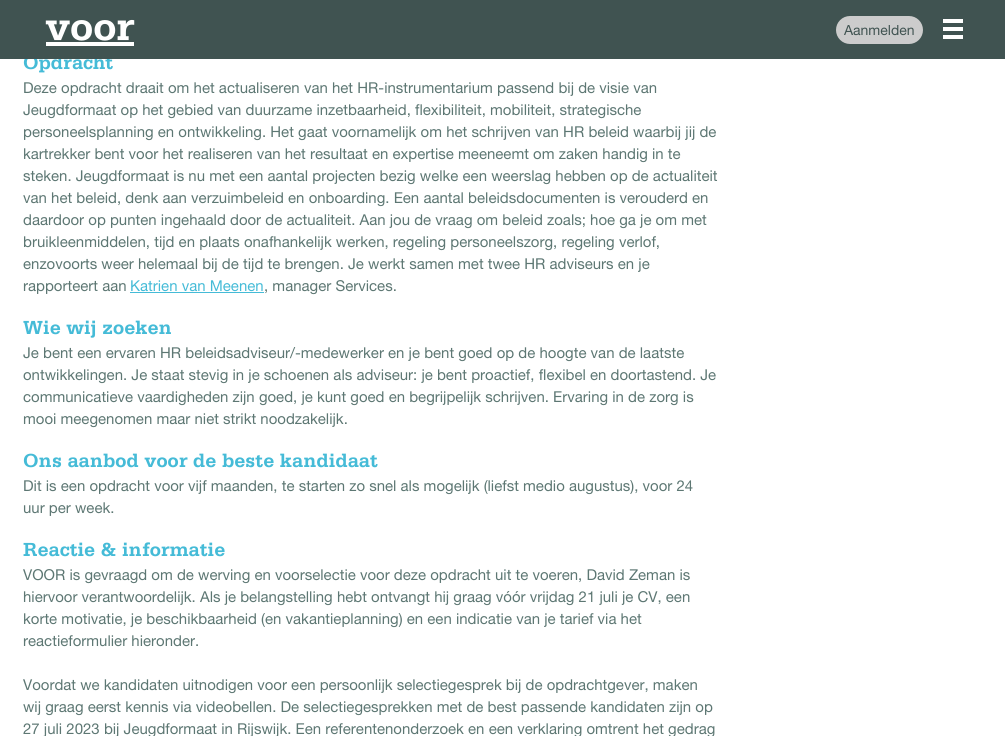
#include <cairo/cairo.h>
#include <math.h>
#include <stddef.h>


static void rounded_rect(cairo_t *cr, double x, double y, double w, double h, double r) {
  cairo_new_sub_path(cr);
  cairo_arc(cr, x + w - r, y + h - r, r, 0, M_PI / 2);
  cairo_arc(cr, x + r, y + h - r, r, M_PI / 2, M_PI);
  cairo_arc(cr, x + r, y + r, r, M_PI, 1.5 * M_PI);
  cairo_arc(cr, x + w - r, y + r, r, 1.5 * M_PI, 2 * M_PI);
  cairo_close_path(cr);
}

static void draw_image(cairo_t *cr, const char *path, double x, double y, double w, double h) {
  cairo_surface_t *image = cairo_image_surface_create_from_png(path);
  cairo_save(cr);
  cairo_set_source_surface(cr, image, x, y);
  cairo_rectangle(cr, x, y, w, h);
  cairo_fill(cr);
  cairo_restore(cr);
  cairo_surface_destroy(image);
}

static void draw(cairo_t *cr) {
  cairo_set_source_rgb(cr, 1, 1, 1);
  cairo_paint(cr);
  cairo_set_source_rgb(cr, 69 / 255.0, 187 / 255.0, 215 / 255.0);
  cairo_rectangle(cr, 130, 292, 134, 1);
  cairo_fill(cr);
  cairo_select_font_face(cr, "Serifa", CAIRO_FONT_SLANT_NORMAL, CAIRO_FONT_WEIGHT_BOLD);
  cairo_set_font_size(cr, 20);
  cairo_move_to(cr, 23, 69);
  cairo_show_text(cr, "Opdracht");
  cairo_set_source_rgb(cr, 64 / 255.0, 83 / 255.0, 81 / 255.0);
  cairo_rectangle(cr, 0, 0, 1005, 59);
  cairo_fill(cr);
  cairo_set_source_rgb(cr, 1, 1, 1);
  cairo_rectangle(cr, 943, 35, 20, 4);
  cairo_fill(cr);
  cairo_rectangle(cr, 943, 27, 20, 4);
  cairo_fill(cr);
  cairo_rectangle(cr, 943, 19, 20, 4);
  cairo_fill(cr);
  cairo_set_source_rgb(cr, 204 / 255.0, 204 / 255.0, 204 / 255.0);
  rounded_rect(cr, 836, 16, 87, 28, 14);
  cairo_fill(cr);
  cairo_select_font_face(cr, "Helvetica Neue", CAIRO_FONT_SLANT_NORMAL, CAIRO_FONT_WEIGHT_NORMAL);
  cairo_set_font_size(cr, 14);
  cairo_set_source_rgb(cr, 64 / 255.0, 83 / 255.0, 81 / 255.0);
  cairo_move_to(cr, 844, 35);
  cairo_show_text(cr, "Aanmelden");
  draw_image(cr, "images/1.png", 45, 19, 90, 27);
  cairo_set_font_size(cr, 15);
  cairo_set_source_rgb(cr, 93 / 255.0, 119 / 255.0, 115 / 255.0);
  cairo_move_to(cr, 23, 93);
  cairo_show_text(cr, "Deze opdracht draait om het actualiseren van het HR-instrumentarium passend bij de visie van");
  cairo_move_to(cr, 23, 115);
  cairo_show_text(cr, "Jeugdformaat op het gebied van duurzame inzetbaarheid, flexibiliteit, mobiliteit, strategische");
  cairo_move_to(cr, 23, 137);
  cairo_show_text(cr, "personeelsplanning en ontwikkeling. Het gaat voornamelijk om het schrijven van HR beleid waarbij jij de");
  cairo_move_to(cr, 23, 159);
  cairo_show_text(cr, "kartrekker bent voor het realiseren van het resultaat en expertise meeneemt om zaken handig in te");
  cairo_move_to(cr, 23, 181);
  cairo_show_text(cr, "steken. Jeugdformaat is nu met een aantal projecten bezig welke een weerslag hebben op de actualiteit");
  cairo_move_to(cr, 23, 203);
  cairo_show_text(cr, "van het beleid, denk aan verzuimbeleid en onboarding. Een aantal beleidsdocumenten is verouderd en");
  cairo_move_to(cr, 23, 225);
  cairo_show_text(cr, "daardoor op punten ingehaald door de actualiteit. Aan jou de vraag om beleid zoals; hoe ga je om met");
  cairo_move_to(cr, 23, 247);
  cairo_show_text(cr, "bruikleenmiddelen, tijd en plaats onafhankelijk werken, regeling personeelszorg, regeling verlof,");
  cairo_move_to(cr, 23, 269);
  cairo_show_text(cr, "enzovoorts weer helemaal bij de tijd te brengen. Je werkt samen met twee HR adviseurs en je");
  cairo_move_to(cr, 23, 291);
  cairo_show_text(cr, "rapporteert aan");
  cairo_set_source_rgb(cr, 69 / 255.0, 187 / 255.0, 215 / 255.0);
  cairo_move_to(cr, 130, 291);
  cairo_show_text(cr, "Katrien van Meenen");
  cairo_set_source_rgb(cr, 93 / 255.0, 119 / 255.0, 115 / 255.0);
  cairo_move_to(cr, 264, 291);
  cairo_show_text(cr, ", manager Services.");
  cairo_select_font_face(cr, "Serifa", CAIRO_FONT_SLANT_NORMAL, CAIRO_FONT_WEIGHT_BOLD);
  cairo_set_font_size(cr, 20);
  cairo_set_source_rgb(cr, 69 / 255.0, 187 / 255.0, 215 / 255.0);
  cairo_move_to(cr, 23, 334);
  cairo_show_text(cr, "Wie wij zoeken");
  cairo_select_font_face(cr, "Helvetica Neue", CAIRO_FONT_SLANT_NORMAL, CAIRO_FONT_WEIGHT_NORMAL);
  cairo_set_font_size(cr, 15);
  cairo_set_source_rgb(cr, 93 / 255.0, 119 / 255.0, 115 / 255.0);
  cairo_move_to(cr, 23, 358);
  cairo_show_text(cr, "Je bent een ervaren HR beleidsadviseur/-medewerker en je bent goed op de hoogte van de laatste");
  cairo_move_to(cr, 23, 380);
  cairo_show_text(cr, "ontwikkelingen. Je staat stevig in je schoenen als adviseur: je bent proactief, flexibel en doortastend. Je");
  cairo_move_to(cr, 23, 402);
  cairo_show_text(cr, "communicatieve vaardigheden zijn goed, je kunt goed en begrijpelijk schrijven. Ervaring in de zorg is");
  cairo_move_to(cr, 23, 424);
  cairo_show_text(cr, "mooi meegenomen maar niet strikt noodzakelijk.");
  cairo_select_font_face(cr, "Serifa", CAIRO_FONT_SLANT_NORMAL, CAIRO_FONT_WEIGHT_BOLD);
  cairo_set_font_size(cr, 20);
  cairo_set_source_rgb(cr, 69 / 255.0, 187 / 255.0, 215 / 255.0);
  cairo_move_to(cr, 23, 467);
  cairo_show_text(cr, "Ons aanbod voor de beste kandidaat");
  cairo_select_font_face(cr, "Helvetica Neue", CAIRO_FONT_SLANT_NORMAL, CAIRO_FONT_WEIGHT_NORMAL);
  cairo_set_font_size(cr, 15);
  cairo_set_source_rgb(cr, 93 / 255.0, 119 / 255.0, 115 / 255.0);
  cairo_move_to(cr, 23, 491);
  cairo_show_text(cr, "Dit is een opdracht voor vijf maanden, te starten zo snel als mogelijk (liefst medio augustus), voor 24");
  cairo_move_to(cr, 23, 513);
  cairo_show_text(cr, "uur per week.");
  cairo_select_font_face(cr, "Serifa", CAIRO_FONT_SLANT_NORMAL, CAIRO_FONT_WEIGHT_BOLD);
  cairo_set_font_size(cr, 20);
  cairo_set_source_rgb(cr, 69 / 255.0, 187 / 255.0, 215 / 255.0);
  cairo_move_to(cr, 23, 556);
  cairo_show_text(cr, "Reactie & informatie");
  cairo_select_font_face(cr, "Helvetica Neue", CAIRO_FONT_SLANT_NORMAL, CAIRO_FONT_WEIGHT_NORMAL);
  cairo_set_font_size(cr, 15);
  cairo_set_source_rgb(cr, 93 / 255.0, 119 / 255.0, 115 / 255.0);
  cairo_move_to(cr, 23, 580);
  cairo_show_text(cr, "VOOR is gevraagd om de werving en voorselectie voor deze opdracht uit te voeren, David Zeman is");
  cairo_move_to(cr, 23, 602);
  cairo_show_text(cr, "hiervoor verantwoordelijk. Als je belangstelling hebt ontvangt hij graag vóór vrijdag 21 juli je CV, een");
  cairo_move_to(cr, 23, 624);
  cairo_show_text(cr, "korte motivatie, je beschikbaarheid (en vakantieplanning) en een indicatie van je tarief via het");
  cairo_move_to(cr, 23, 646);
  cairo_show_text(cr, "reactieformulier hieronder.");
  cairo_move_to(cr, 23, 690);
  cairo_show_text(cr, "Voordat we kandidaten uitnodigen voor een persoonlijk selectiegesprek bij de opdrachtgever, maken");
  cairo_move_to(cr, 23, 712);
  cairo_show_text(cr, "wij graag eerst kennis via videobellen. De selectiegesprekken met de best passende kandidaten zijn op");
  cairo_move_to(cr, 23, 734);
  cairo_show_text(cr, "27 juli 2023 bij Jeugdformaat in Rijswijk. Een referentenonderzoek en een verklaring omtrent het gedrag");
}

int main(void) {
  cairo_surface_t *surface = cairo_image_surface_create(CAIRO_FORMAT_RGB24, 1005, 736);
  cairo_t *cr = cairo_create(surface);
  cairo_font_options_t *options = cairo_font_options_create();
  cairo_font_options_set_hint_metrics(options, CAIRO_HINT_METRICS_OFF);
  cairo_font_options_set_hint_style(options, CAIRO_HINT_STYLE_NONE);
  cairo_set_font_options(cr, options);
  cairo_set_miter_limit(cr, 4);
  draw(cr);
  cairo_surface_write_to_png(surface, "out.png");
  cairo_font_options_destroy(options);
  cairo_destroy(cr);
  cairo_surface_destroy(surface);
  return 0;
}
